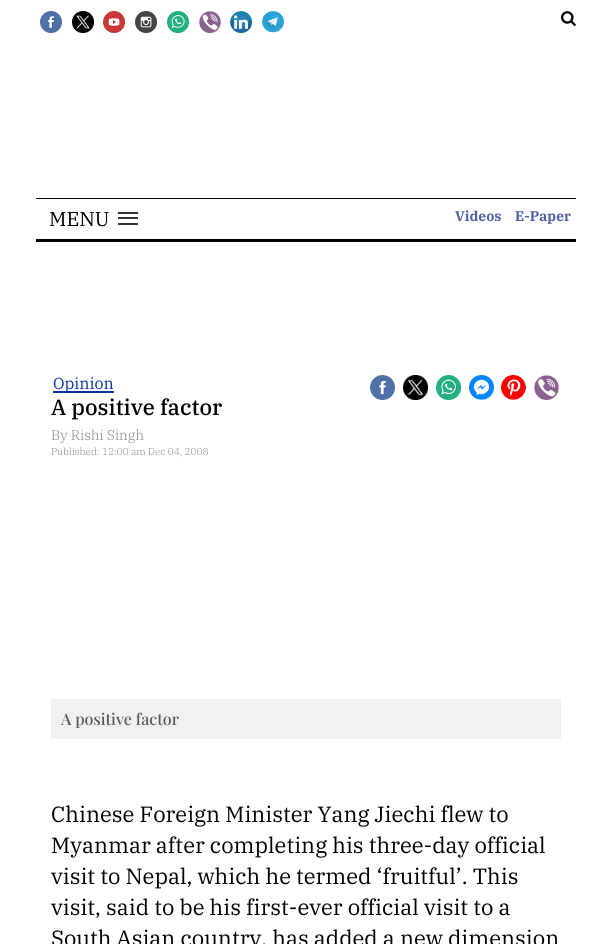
#include <cairo/cairo.h>
#include <math.h>
#include <stddef.h>


static void draw_image(cairo_t *cr, const char *path, double x, double y, double w, double h) {
  cairo_surface_t *image = cairo_image_surface_create_from_png(path);
  cairo_save(cr);
  cairo_set_source_surface(cr, image, x, y);
  cairo_rectangle(cr, x, y, w, h);
  cairo_fill(cr);
  cairo_restore(cr);
  cairo_surface_destroy(image);
}

static void draw(cairo_t *cr) {
  cairo_set_source_rgb(cr, 1, 1, 1);
  cairo_paint(cr);
  draw_image(cr, "images/1.png", 40, 11, 22, 22);
  draw_image(cr, "images/2.png", 72, 11, 22, 22);
  draw_image(cr, "images/3.png", 103, 11, 22, 22);
  draw_image(cr, "images/4.png", 135, 11, 22, 22);
  draw_image(cr, "images/5.png", 167, 11, 22, 22);
  draw_image(cr, "images/6.png", 199, 11, 22, 22);
  draw_image(cr, "images/7.png", 230, 11, 22, 22);
  draw_image(cr, "images/8.png", 262, 11, 22, 22);
  draw_image(cr, "images/9.png", 561, 11, 15, 15);
  cairo_set_source_rgb(cr, 0, 0, 0);
  cairo_rectangle(cr, 36, 198, 540, 1);
  cairo_fill(cr);
  cairo_rectangle(cr, 36, 239, 540, 3);
  cairo_fill(cr);
  cairo_set_source_rgb(cr, 51 / 255.0, 51 / 255.0, 51 / 255.0);
  cairo_rectangle(cr, 118, 212, 20, 2);
  cairo_fill(cr);
  cairo_rectangle(cr, 118, 217, 20, 2);
  cairo_fill(cr);
  cairo_rectangle(cr, 118, 223, 20, 2);
  cairo_fill(cr);
  cairo_set_source_rgb(cr, 10 / 255.0, 50 / 255.0, 160 / 255.0);
  cairo_rectangle(cr, 53, 391, 61, 2);
  cairo_fill(cr);
  draw_image(cr, "images/10.png", 370, 375, 25, 25);
  draw_image(cr, "images/11.png", 403, 375, 25, 25);
  draw_image(cr, "images/12.png", 436, 375, 25, 25);
  draw_image(cr, "images/13.png", 469, 375, 25, 25);
  draw_image(cr, "images/14.png", 501, 375, 25, 25);
  draw_image(cr, "images/15.png", 534, 375, 25, 25);
  cairo_set_source_rgb(cr, 241 / 255.0, 241 / 255.0, 241 / 255.0);
  cairo_rectangle(cr, 51, 699, 510, 40);
  cairo_fill(cr);
  cairo_select_font_face(cr, "IBM Plex Serif", CAIRO_FONT_SLANT_NORMAL, CAIRO_FONT_WEIGHT_NORMAL);
  cairo_set_font_size(cr, 20);
  cairo_set_source_rgb(cr, 0, 0, 0);
  cairo_move_to(cr, 49, 226);
  cairo_show_text(cr, "MENU");
  cairo_select_font_face(cr, "IBM Plex Serif", CAIRO_FONT_SLANT_NORMAL, CAIRO_FONT_WEIGHT_BOLD);
  cairo_set_font_size(cr, 14);
  cairo_set_source_rgb(cr, 81 / 255.0, 96 / 255.0, 167 / 255.0);
  cairo_move_to(cr, 455, 221);
  cairo_show_text(cr, "Videos");
  cairo_move_to(cr, 515, 221);
  cairo_show_text(cr, "E-Paper");
  cairo_select_font_face(cr, "IBM Plex Serif", CAIRO_FONT_SLANT_NORMAL, CAIRO_FONT_WEIGHT_NORMAL);
  cairo_set_font_size(cr, 16);
  cairo_set_source_rgb(cr, 10 / 255.0, 50 / 255.0, 160 / 255.0);
  cairo_move_to(cr, 53, 389);
  cairo_show_text(cr, "Opinion");
  cairo_select_font_face(cr, "IBM Plex Serif Medium", CAIRO_FONT_SLANT_NORMAL, CAIRO_FONT_WEIGHT_NORMAL);
  cairo_set_font_size(cr, 22);
  cairo_set_source_rgb(cr, 0, 0, 0);
  cairo_move_to(cr, 51, 415);
  cairo_show_text(cr, "A positive factor");
  cairo_select_font_face(cr, "IBM Plex Serif Light", CAIRO_FONT_SLANT_NORMAL, CAIRO_FONT_WEIGHT_NORMAL);
  cairo_set_font_size(cr, 14);
  cairo_set_source_rgb(cr, 136 / 255.0, 136 / 255.0, 136 / 255.0);
  cairo_move_to(cr, 51, 440);
  cairo_show_text(cr, "By Rishi Singh");
  cairo_set_font_size(cr, 10);
  cairo_move_to(cr, 51, 455);
  cairo_show_text(cr, "Published: 12:00 am Dec 04, 2008");
  cairo_select_font_face(cr, "Playfair Display Medium", CAIRO_FONT_SLANT_NORMAL, CAIRO_FONT_WEIGHT_NORMAL);
  cairo_set_font_size(cr, 16);
  cairo_set_source_rgb(cr, 86 / 255.0, 86 / 255.0, 86 / 255.0);
  cairo_move_to(cr, 61, 725);
  cairo_show_text(cr, "A positive factor");
  cairo_select_font_face(cr, "IBM Plex Serif", CAIRO_FONT_SLANT_NORMAL, CAIRO_FONT_WEIGHT_NORMAL);
  cairo_set_font_size(cr, 22);
  cairo_set_source_rgb(cr, 0, 0, 0);
  cairo_move_to(cr, 51, 822);
  cairo_show_text(cr, "Chinese Foreign Minister Yang Jiechi flew to");
  cairo_move_to(cr, 51, 853);
  cairo_show_text(cr, "Myanmar after completing his three-day official");
  cairo_move_to(cr, 51, 884);
  cairo_show_text(cr, "visit to Nepal, which he termed ‘fruitful’. This");
  cairo_move_to(cr, 51, 915);
  cairo_show_text(cr, "visit, said to be his first-ever official visit to a");
  cairo_move_to(cr, 51, 946);
  cairo_show_text(cr, "South Asian country, has added a new dimension");
}

int main(void) {
  cairo_surface_t *surface = cairo_image_surface_create(CAIRO_FORMAT_RGB24, 612, 944);
  cairo_t *cr = cairo_create(surface);
  cairo_font_options_t *options = cairo_font_options_create();
  cairo_font_options_set_hint_metrics(options, CAIRO_HINT_METRICS_OFF);
  cairo_font_options_set_hint_style(options, CAIRO_HINT_STYLE_NONE);
  cairo_set_font_options(cr, options);
  cairo_set_miter_limit(cr, 4);
  draw(cr);
  cairo_surface_write_to_png(surface, "out.png");
  cairo_font_options_destroy(options);
  cairo_destroy(cr);
  cairo_surface_destroy(surface);
  return 0;
}
